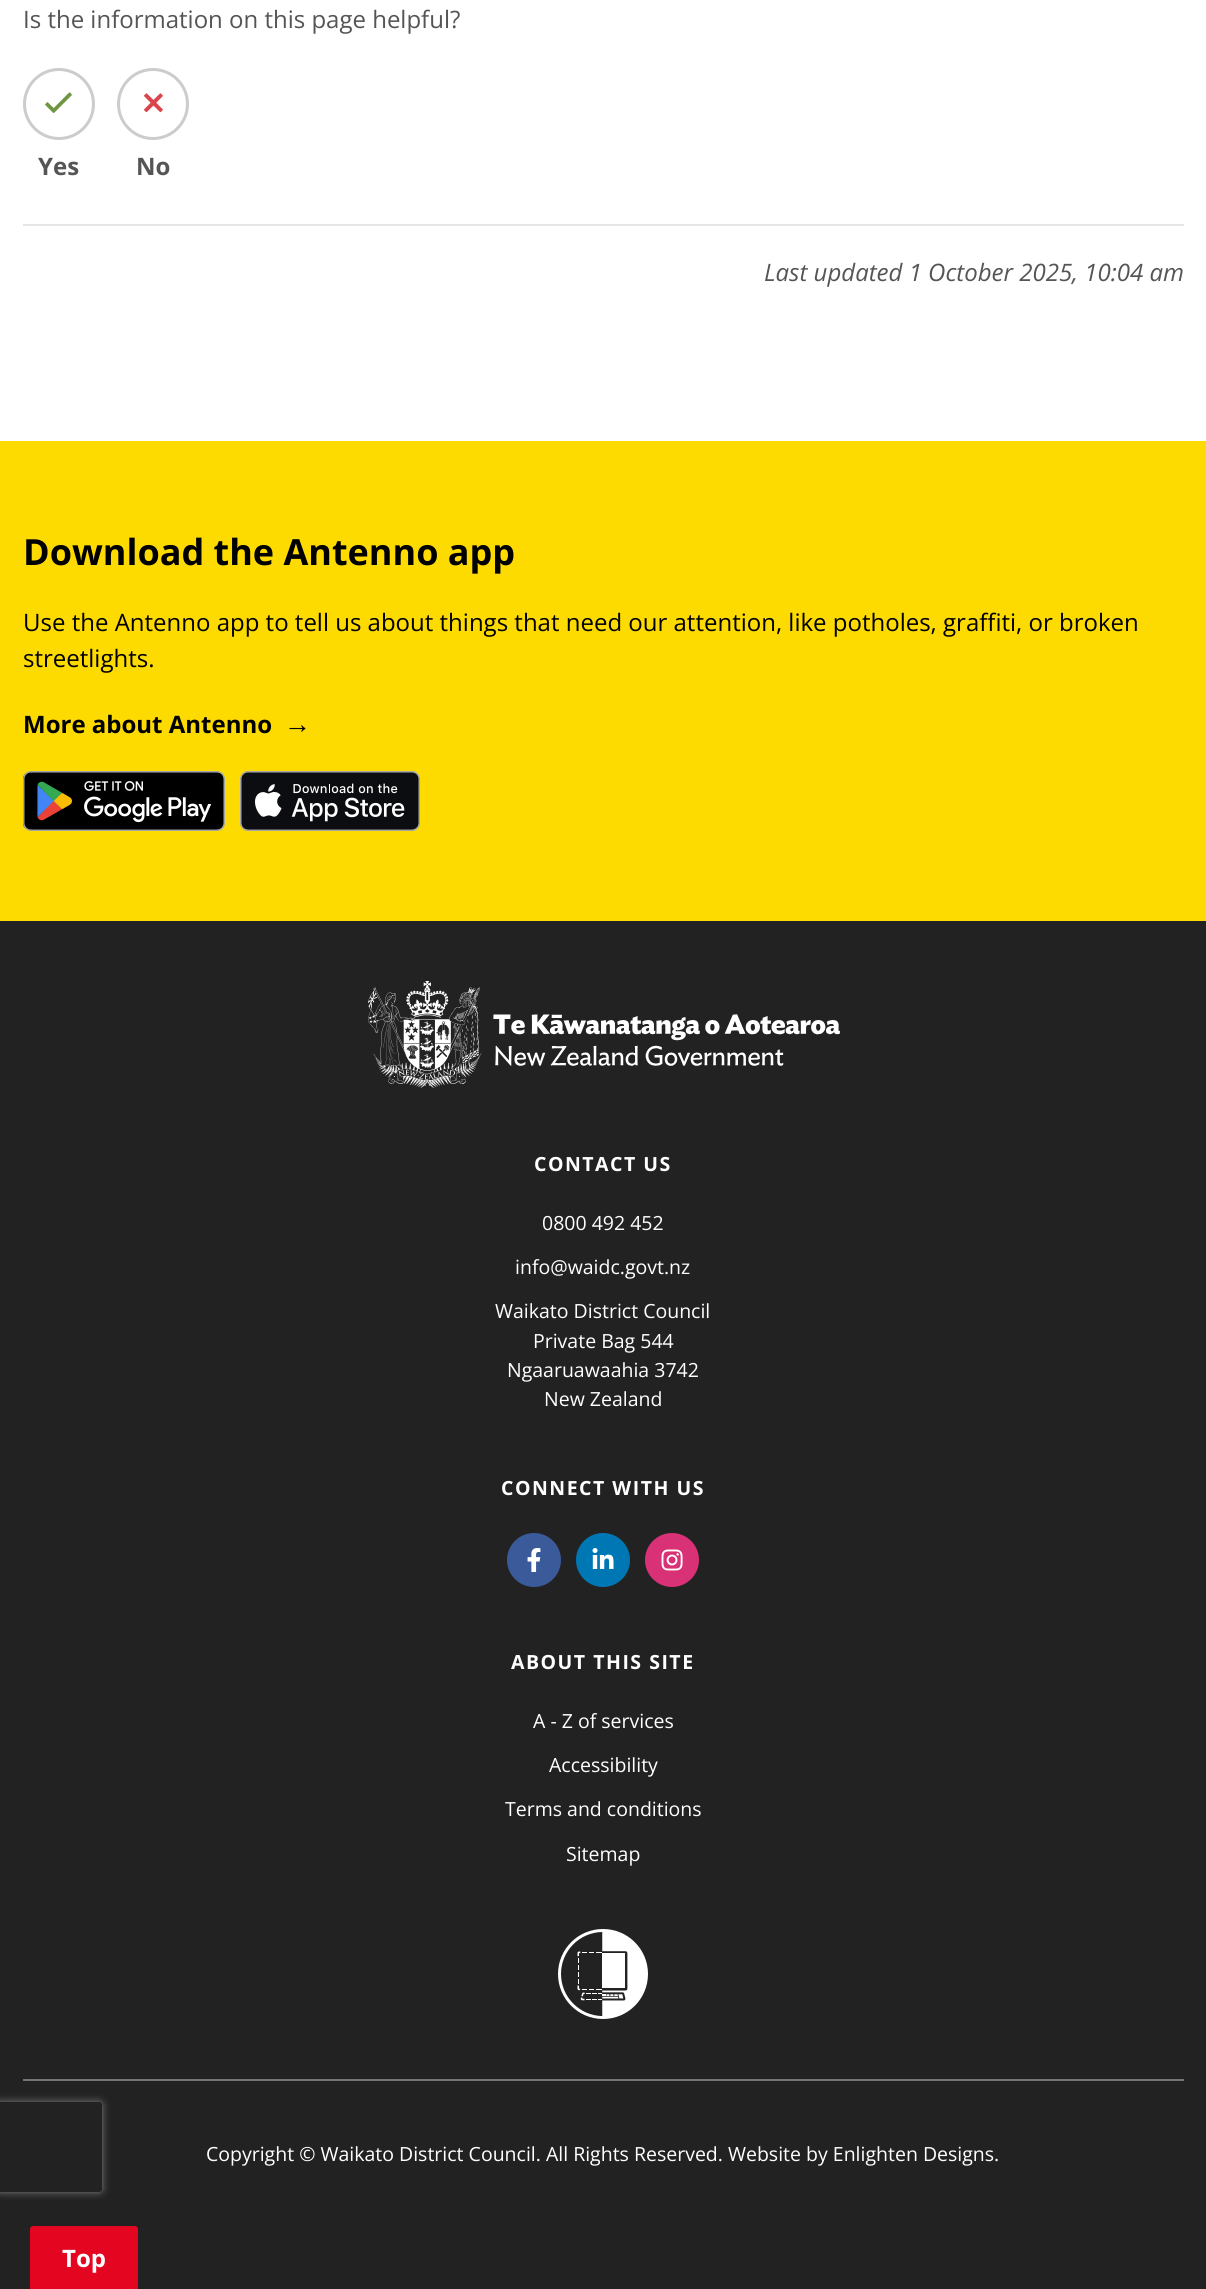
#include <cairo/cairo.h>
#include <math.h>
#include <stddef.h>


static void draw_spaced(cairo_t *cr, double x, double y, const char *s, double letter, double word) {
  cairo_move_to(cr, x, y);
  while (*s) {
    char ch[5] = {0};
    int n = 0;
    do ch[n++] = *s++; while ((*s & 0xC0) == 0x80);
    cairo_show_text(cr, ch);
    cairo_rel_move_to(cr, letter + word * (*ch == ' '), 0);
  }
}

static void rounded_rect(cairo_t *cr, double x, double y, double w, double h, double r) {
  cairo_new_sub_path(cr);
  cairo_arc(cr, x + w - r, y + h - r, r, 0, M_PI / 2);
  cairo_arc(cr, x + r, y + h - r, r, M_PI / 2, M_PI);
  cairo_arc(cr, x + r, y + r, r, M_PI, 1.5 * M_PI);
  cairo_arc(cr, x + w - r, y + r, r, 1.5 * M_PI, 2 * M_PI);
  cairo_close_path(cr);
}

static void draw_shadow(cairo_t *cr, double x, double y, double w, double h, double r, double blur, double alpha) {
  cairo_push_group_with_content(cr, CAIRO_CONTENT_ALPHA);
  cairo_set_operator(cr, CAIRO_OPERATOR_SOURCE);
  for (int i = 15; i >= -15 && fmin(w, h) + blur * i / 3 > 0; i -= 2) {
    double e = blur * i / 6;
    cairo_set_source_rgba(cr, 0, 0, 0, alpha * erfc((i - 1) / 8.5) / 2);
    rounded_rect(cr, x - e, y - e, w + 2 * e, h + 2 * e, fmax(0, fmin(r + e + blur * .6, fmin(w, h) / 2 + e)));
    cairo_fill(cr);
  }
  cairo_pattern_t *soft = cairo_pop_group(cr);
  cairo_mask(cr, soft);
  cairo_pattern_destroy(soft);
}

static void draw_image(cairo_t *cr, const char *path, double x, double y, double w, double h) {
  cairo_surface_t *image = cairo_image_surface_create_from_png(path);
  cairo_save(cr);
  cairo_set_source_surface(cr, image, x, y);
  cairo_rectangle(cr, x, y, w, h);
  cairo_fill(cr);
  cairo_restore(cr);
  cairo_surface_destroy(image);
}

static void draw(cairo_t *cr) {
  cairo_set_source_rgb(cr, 34 / 255.0, 34 / 255.0, 34 / 255.0);
  cairo_paint(cr);
  cairo_set_source_rgb(cr, 1, 1, 1);
  cairo_rectangle(cr, 0, 0, 1206, 441);
  cairo_fill(cr);
  cairo_arc(cr, 59, 104, 34.5, 0, 2 * M_PI);
  cairo_set_source_rgb(cr, 204 / 255.0, 204 / 255.0, 204 / 255.0);
  cairo_set_line_width(cr, 3);
  cairo_stroke(cr);
  draw_image(cr, "images/1.png", 45, 92, 27, 22);
  cairo_arc(cr, 153, 104, 34.5, 0, 2 * M_PI);
  cairo_stroke(cr);
  draw_image(cr, "images/2.png", 144, 93, 19, 20);
  cairo_set_source_rgb(cr, 229 / 255.0, 229 / 255.0, 229 / 255.0);
  cairo_rectangle(cr, 23, 224, 1161, 2);
  cairo_fill(cr);
  cairo_set_source_rgb(cr, 254 / 255.0, 219 / 255.0, 0);
  cairo_rectangle(cr, 0, 441, 1206, 480);
  cairo_fill(cr);
  draw_image(cr, "images/3.png", 23, 771, 202, 60);
  draw_image(cr, "images/4.png", 240, 771, 180, 60);
  draw_image(cr, "images/5.png", 368, 981, 472, 108);
  cairo_set_source_rgb(cr, 59 / 255.0, 90 / 255.0, 153 / 255.0);
  cairo_arc(cr, 534, 1560, 27, 0, 2 * M_PI);
  cairo_fill(cr);
  draw_image(cr, "images/6.png", 527, 1548, 14, 24);
  cairo_set_source_rgb(cr, 0, 119 / 255.0, 181 / 255.0);
  cairo_arc(cr, 603, 1560, 27, 0, 2 * M_PI);
  cairo_fill(cr);
  draw_image(cr, "images/7.png", 592, 1548, 22, 21);
  cairo_set_source_rgb(cr, 217 / 255.0, 49 / 255.0, 117 / 255.0);
  cairo_arc(cr, 672, 1560, 27, 0, 2 * M_PI);
  cairo_fill(cr);
  draw_image(cr, "images/8.png", 661, 1549, 22, 22);
  draw_image(cr, "images/9.png", 558, 1929, 90, 90);
  cairo_set_source_rgb(cr, 118 / 255.0, 118 / 255.0, 118 / 255.0);
  cairo_rectangle(cr, 23, 2079, 1161, 2);
  cairo_fill(cr);
  cairo_set_source_rgb(cr, 228 / 255.0, 5 / 255.0, 32 / 255.0);
  cairo_new_path(cr);
  cairo_move_to(cr, 33, 2227);
  cairo_line_to(cr, 135, 2227);
  cairo_curve_to(cr, 136, 2227, 137, 2228, 137, 2229);
  cairo_line_to(cr, 137, 2288);
  cairo_line_to(cr, 31, 2288);
  cairo_line_to(cr, 31, 2229);
  cairo_curve_to(cr, 31, 2228, 32, 2227, 33, 2227);
  cairo_close_path(cr);
  cairo_fill_preserve(cr);
  cairo_set_line_width(cr, 2);
  cairo_stroke(cr);
  cairo_save(cr);
  cairo_set_fill_rule(cr, CAIRO_FILL_RULE_EVEN_ODD);
  cairo_new_path(cr);
  cairo_move_to(cr, 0, 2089);
  cairo_line_to(cr, 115, 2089);
  cairo_line_to(cr, 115, 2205);
  cairo_line_to(cr, 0, 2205);
  cairo_close_path(cr);
  cairo_move_to(cr, 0, 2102);
  cairo_line_to(cr, 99, 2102);
  cairo_curve_to(cr, 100.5, 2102, 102, 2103.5, 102, 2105);
  cairo_line_to(cr, 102, 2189);
  cairo_curve_to(cr, 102, 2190.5, 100.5, 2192, 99, 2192);
  cairo_line_to(cr, 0, 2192);
  cairo_curve_to(cr, -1.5, 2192, -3, 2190.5, -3, 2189);
  cairo_line_to(cr, -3, 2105);
  cairo_curve_to(cr, -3, 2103.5, -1.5, 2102, 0, 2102);
  cairo_close_path(cr);
  cairo_clip(cr);
  cairo_set_source_rgb(cr, 128 / 255.0, 128 / 255.0, 128 / 255.0);
  draw_shadow(cr, -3, 2102, 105, 90, 3, 4, 1);
  cairo_restore(cr);
  cairo_select_font_face(cr, "Open Sans", CAIRO_FONT_SLANT_NORMAL, CAIRO_FONT_WEIGHT_NORMAL);
  cairo_set_font_size(cr, 24);
  cairo_set_source_rgb(cr, 85 / 255.0, 85 / 255.0, 85 / 255.0);
  cairo_move_to(cr, 23, 28);
  cairo_show_text(cr, "Is the information on this page helpful?");
  cairo_select_font_face(cr, "Open Sans", CAIRO_FONT_SLANT_NORMAL, CAIRO_FONT_WEIGHT_BOLD);
  cairo_move_to(cr, 38, 175);
  cairo_show_text(cr, "Yes");
  cairo_move_to(cr, 136, 175);
  cairo_show_text(cr, "No");
  cairo_select_font_face(cr, "Open Sans", CAIRO_FONT_SLANT_ITALIC, CAIRO_FONT_WEIGHT_NORMAL);
  cairo_move_to(cr, 764, 281);
  cairo_show_text(cr, "Last updated 1 October 2025, 10:04 am");
  cairo_select_font_face(cr, "Open Sans", CAIRO_FONT_SLANT_NORMAL, CAIRO_FONT_WEIGHT_BOLD);
  cairo_set_font_size(cr, 36);
  cairo_set_source_rgb(cr, 0, 0, 0);
  cairo_move_to(cr, 23, 565);
  cairo_show_text(cr, "Download the Antenno app");
  cairo_select_font_face(cr, "Open Sans", CAIRO_FONT_SLANT_NORMAL, CAIRO_FONT_WEIGHT_NORMAL);
  cairo_set_font_size(cr, 24);
  cairo_move_to(cr, 23, 631);
  cairo_show_text(cr, "Use the Antenno app to tell us about things that need our attention, like potholes, graffiti, or broken");
  cairo_move_to(cr, 23, 667);
  cairo_show_text(cr, "streetlights.");
  cairo_select_font_face(cr, "Open Sans", CAIRO_FONT_SLANT_NORMAL, CAIRO_FONT_WEIGHT_BOLD);
  cairo_move_to(cr, 23, 733);
  cairo_show_text(cr, "More about Antenno");
  cairo_select_font_face(cr, "Liberation Sans", CAIRO_FONT_SLANT_NORMAL, CAIRO_FONT_WEIGHT_BOLD);
  cairo_set_font_size(cr, 27);
  cairo_move_to(cr, 284, 733);
  cairo_show_text(cr, "→");
  cairo_select_font_face(cr, "Open Sans", CAIRO_FONT_SLANT_NORMAL, CAIRO_FONT_WEIGHT_BOLD);
  cairo_set_font_size(cr, 19.5);
  cairo_set_source_rgb(cr, 1, 1, 1);
  draw_spaced(cr, 534, 1171, "CONTACT US", 1.5, 0);
  cairo_select_font_face(cr, "Open Sans", CAIRO_FONT_SLANT_NORMAL, CAIRO_FONT_WEIGHT_NORMAL);
  cairo_move_to(cr, 542, 1230);
  cairo_show_text(cr, "0800 492 452");
  cairo_move_to(cr, 515, 1274);
  cairo_show_text(cr, "info@waidc.govt.nz");
  cairo_move_to(cr, 495, 1318);
  cairo_show_text(cr, "Waikato District Council");
  cairo_move_to(cr, 533, 1348);
  cairo_show_text(cr, "Private Bag 544");
  cairo_move_to(cr, 507, 1377);
  cairo_show_text(cr, "Ngaaruawaahia 3742");
  cairo_move_to(cr, 544, 1406);
  cairo_show_text(cr, "New Zealand");
  cairo_select_font_face(cr, "Open Sans", CAIRO_FONT_SLANT_NORMAL, CAIRO_FONT_WEIGHT_BOLD);
  draw_spaced(cr, 501, 1495, "CONNECT WITH US", 1.5, 0);
  draw_spaced(cr, 511, 1669, "ABOUT THIS SITE", 1.5, 0);
  cairo_select_font_face(cr, "Open Sans", CAIRO_FONT_SLANT_NORMAL, CAIRO_FONT_WEIGHT_NORMAL);
  cairo_move_to(cr, 533, 1728);
  cairo_show_text(cr, "A - Z of services");
  cairo_move_to(cr, 549, 1772);
  cairo_show_text(cr, "Accessibility");
  cairo_move_to(cr, 505, 1816);
  cairo_show_text(cr, "Terms and conditions");
  cairo_move_to(cr, 566, 1861);
  cairo_show_text(cr, "Sitemap");
  cairo_move_to(cr, 206, 2161);
  cairo_show_text(cr, "Copyright © Waikato District Council. All Rights Reserved. Website by Enlighten Designs.");
  cairo_select_font_face(cr, "Open Sans", CAIRO_FONT_SLANT_NORMAL, CAIRO_FONT_WEIGHT_BOLD);
  cairo_set_font_size(cr, 24);
  cairo_move_to(cr, 62, 2267);
  cairo_show_text(cr, "Top");
}

int main(void) {
  cairo_surface_t *surface = cairo_image_surface_create(CAIRO_FORMAT_RGB24, 1206, 2289);
  cairo_t *cr = cairo_create(surface);
  cairo_font_options_t *options = cairo_font_options_create();
  cairo_font_options_set_hint_metrics(options, CAIRO_HINT_METRICS_OFF);
  cairo_font_options_set_hint_style(options, CAIRO_HINT_STYLE_NONE);
  cairo_set_font_options(cr, options);
  cairo_set_miter_limit(cr, 4);
  draw(cr);
  cairo_surface_write_to_png(surface, "out.png");
  cairo_font_options_destroy(options);
  cairo_destroy(cr);
  cairo_surface_destroy(surface);
  return 0;
}
